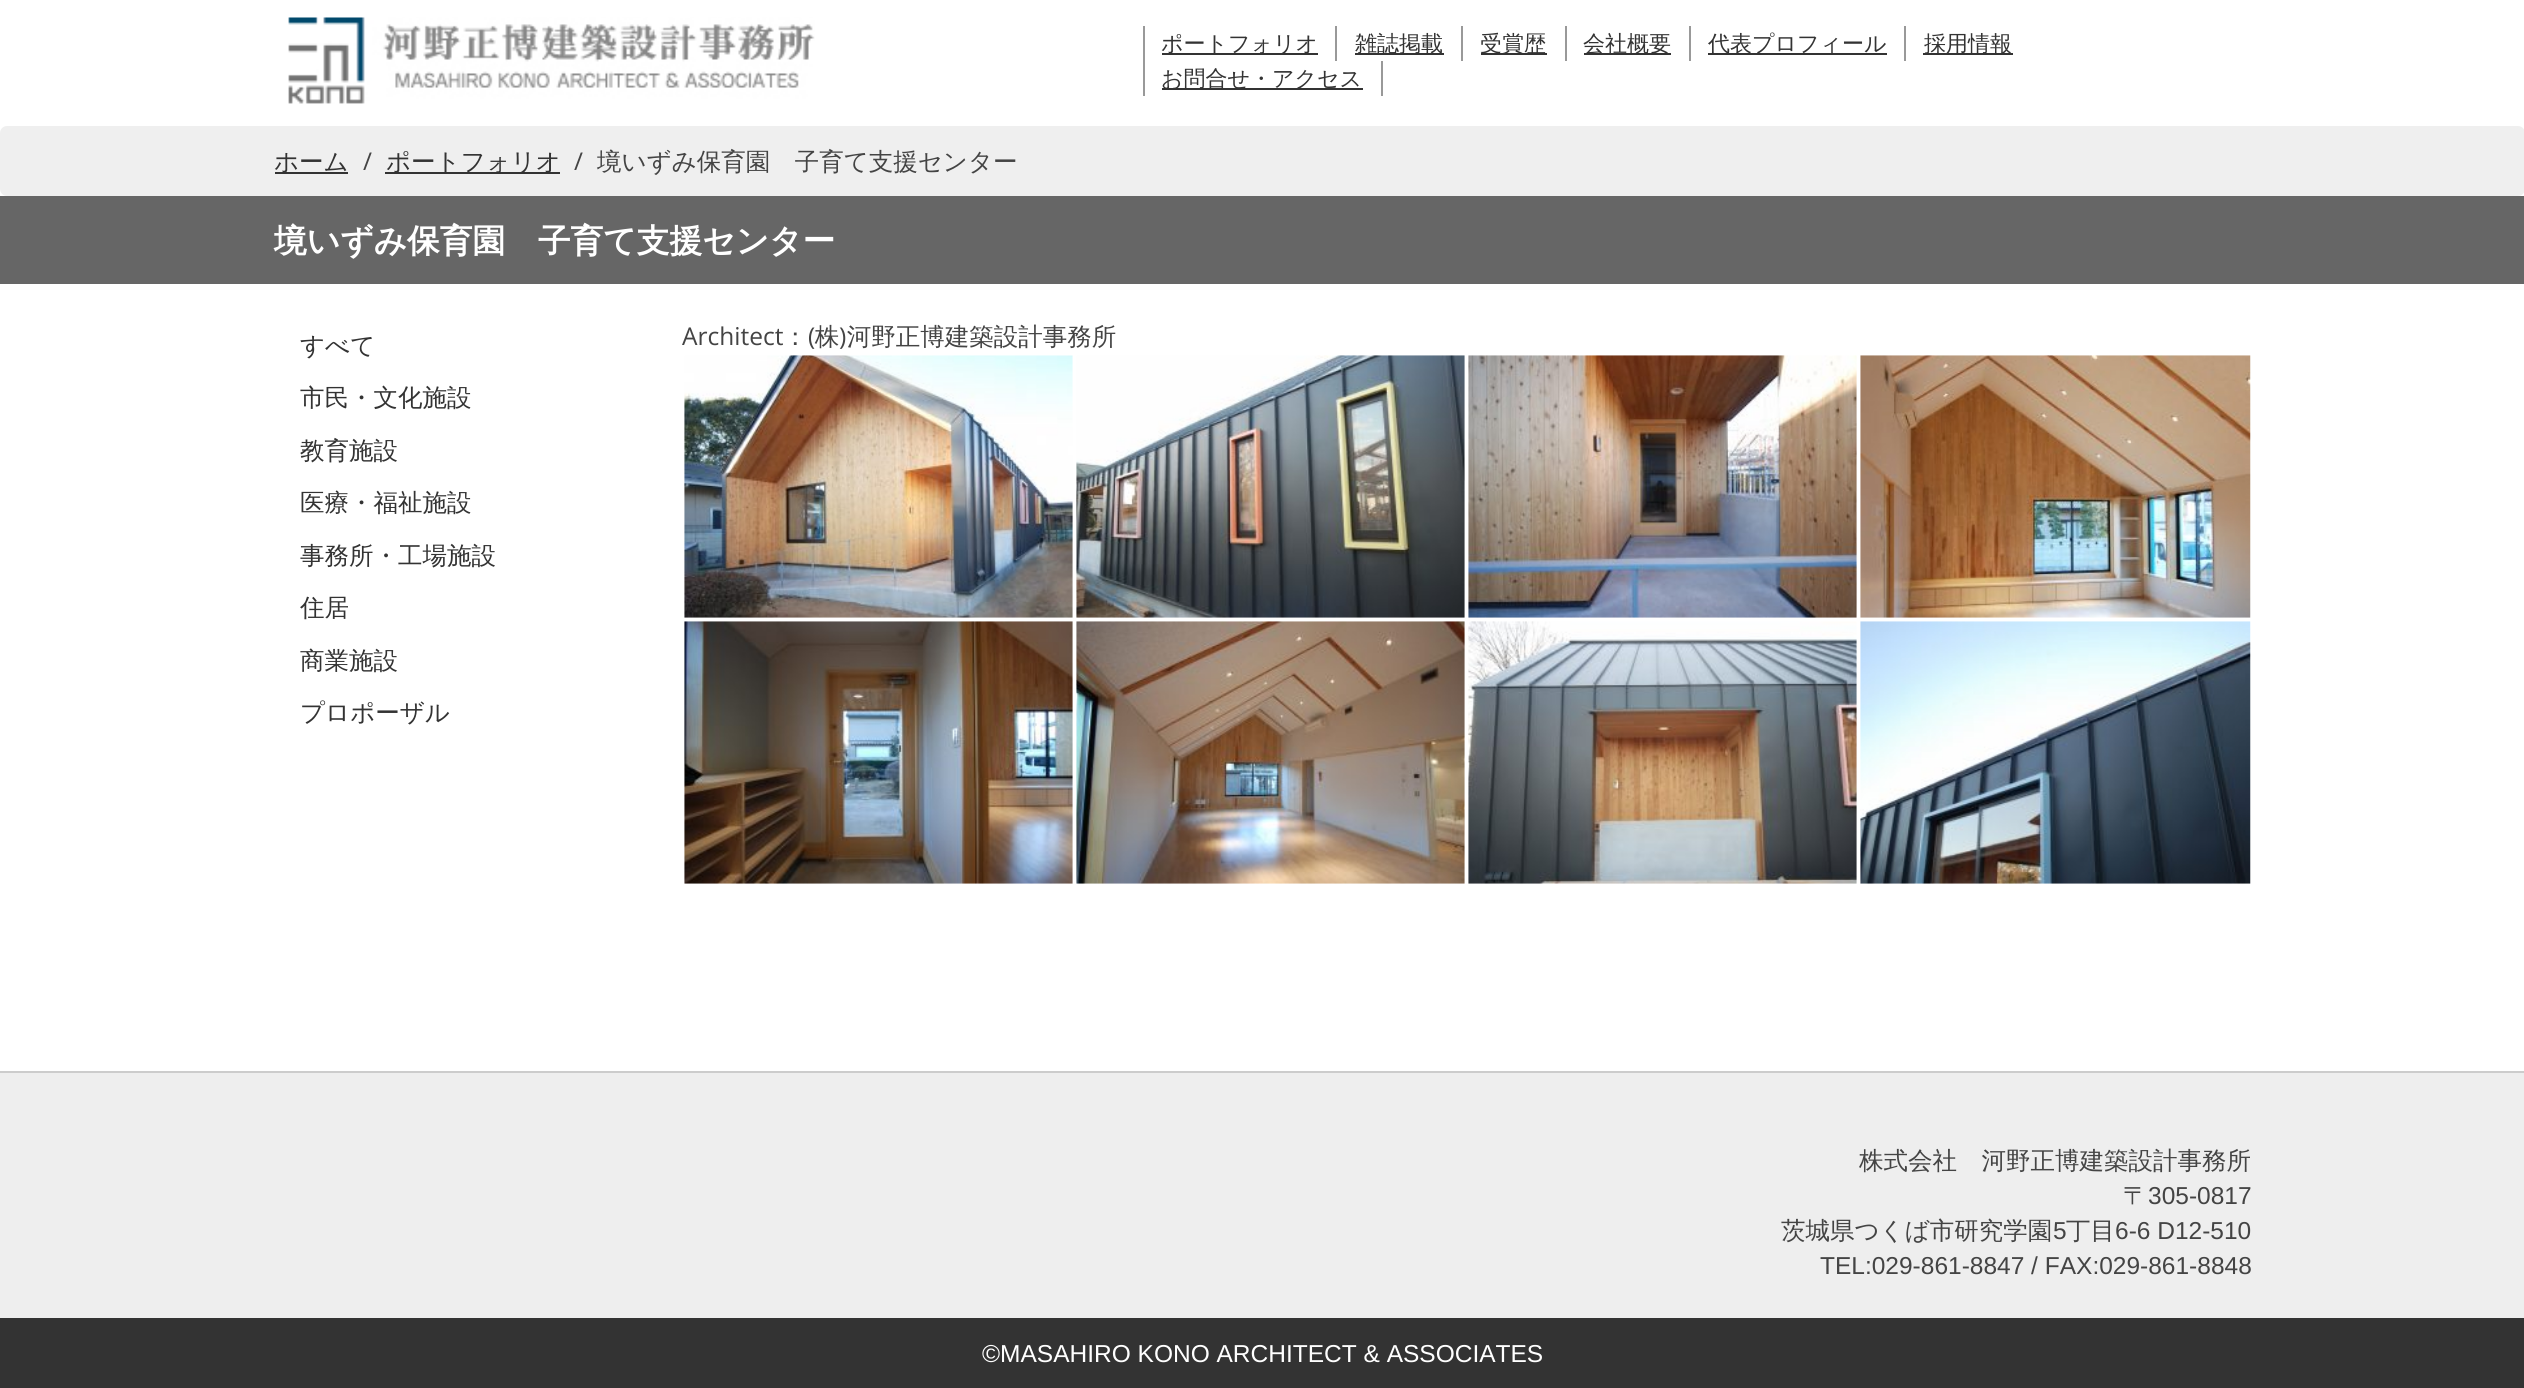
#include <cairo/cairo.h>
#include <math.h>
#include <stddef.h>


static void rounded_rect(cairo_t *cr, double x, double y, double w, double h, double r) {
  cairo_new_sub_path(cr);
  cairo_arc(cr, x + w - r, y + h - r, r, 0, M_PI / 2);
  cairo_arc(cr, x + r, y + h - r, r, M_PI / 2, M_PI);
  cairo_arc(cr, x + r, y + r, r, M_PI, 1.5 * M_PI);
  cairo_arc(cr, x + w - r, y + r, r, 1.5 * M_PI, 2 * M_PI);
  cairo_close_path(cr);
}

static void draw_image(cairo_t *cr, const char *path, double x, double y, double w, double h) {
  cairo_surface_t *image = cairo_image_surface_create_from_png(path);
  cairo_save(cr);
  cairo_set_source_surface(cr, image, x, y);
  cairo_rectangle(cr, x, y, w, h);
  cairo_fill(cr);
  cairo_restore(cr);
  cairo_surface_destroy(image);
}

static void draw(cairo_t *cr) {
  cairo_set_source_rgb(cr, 1, 1, 1);
  cairo_paint(cr);
  draw_image(cr, "images/1.png", 288, 17, 527, 87);
  cairo_set_source_rgb(cr, 153 / 255.0, 153 / 255.0, 153 / 255.0);
  cairo_rectangle(cr, 1143, 26, 2, 70);
  cairo_fill(cr);
  cairo_set_source_rgb(cr, 51 / 255.0, 51 / 255.0, 51 / 255.0);
  cairo_rectangle(cr, 1162, 53, 156, 2);
  cairo_fill(cr);
  cairo_set_source_rgb(cr, 153 / 255.0, 153 / 255.0, 153 / 255.0);
  cairo_rectangle(cr, 1335, 26, 2, 35);
  cairo_fill(cr);
  cairo_set_source_rgb(cr, 51 / 255.0, 51 / 255.0, 51 / 255.0);
  cairo_rectangle(cr, 1355, 53, 89, 2);
  cairo_fill(cr);
  cairo_set_source_rgb(cr, 153 / 255.0, 153 / 255.0, 153 / 255.0);
  cairo_rectangle(cr, 1461, 26, 2, 35);
  cairo_fill(cr);
  cairo_set_source_rgb(cr, 51 / 255.0, 51 / 255.0, 51 / 255.0);
  cairo_rectangle(cr, 1481, 53, 66, 2);
  cairo_fill(cr);
  cairo_set_source_rgb(cr, 153 / 255.0, 153 / 255.0, 153 / 255.0);
  cairo_rectangle(cr, 1565, 26, 2, 35);
  cairo_fill(cr);
  cairo_set_source_rgb(cr, 51 / 255.0, 51 / 255.0, 51 / 255.0);
  cairo_rectangle(cr, 1584, 53, 87, 2);
  cairo_fill(cr);
  cairo_set_source_rgb(cr, 153 / 255.0, 153 / 255.0, 153 / 255.0);
  cairo_rectangle(cr, 1689, 26, 2, 35);
  cairo_fill(cr);
  cairo_set_source_rgb(cr, 51 / 255.0, 51 / 255.0, 51 / 255.0);
  cairo_rectangle(cr, 1708, 53, 179, 2);
  cairo_fill(cr);
  cairo_set_source_rgb(cr, 153 / 255.0, 153 / 255.0, 153 / 255.0);
  cairo_rectangle(cr, 1904, 26, 2, 35);
  cairo_fill(cr);
  cairo_set_source_rgb(cr, 51 / 255.0, 51 / 255.0, 51 / 255.0);
  cairo_rectangle(cr, 1923, 53, 90, 2);
  cairo_fill(cr);
  cairo_set_source_rgb(cr, 153 / 255.0, 153 / 255.0, 153 / 255.0);
  cairo_rectangle(cr, 1381, 61, 2, 35);
  cairo_fill(cr);
  cairo_set_source_rgb(cr, 51 / 255.0, 51 / 255.0, 51 / 255.0);
  cairo_rectangle(cr, 1162, 88, 201, 2);
  cairo_fill(cr);
  cairo_set_source_rgb(cr, 239 / 255.0, 239 / 255.0, 239 / 255.0);
  rounded_rect(cr, 0, 126, 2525, 70, 7);
  cairo_fill(cr);
  cairo_set_source_rgb(cr, 51 / 255.0, 51 / 255.0, 51 / 255.0);
  cairo_rectangle(cr, 275, 172, 73, 2);
  cairo_fill(cr);
  cairo_rectangle(cr, 385, 172, 175, 2);
  cairo_fill(cr);
  cairo_set_source_rgb(cr, 102 / 255.0, 102 / 255.0, 102 / 255.0);
  cairo_rectangle(cr, 0, 196, 2524, 88);
  cairo_fill(cr);
  draw_image(cr, "images/2.png", 684, 355, 389, 263);
  draw_image(cr, "images/3.png", 1076, 355, 389, 263);
  draw_image(cr, "images/4.png", 1468, 355, 389, 263);
  draw_image(cr, "images/5.png", 1860, 355, 391, 263);
  draw_image(cr, "images/6.png", 684, 621, 389, 263);
  draw_image(cr, "images/7.png", 1076, 621, 389, 263);
  draw_image(cr, "images/8.png", 1468, 621, 389, 263);
  draw_image(cr, "images/9.png", 1860, 621, 391, 263);
  cairo_set_source_rgb(cr, 238 / 255.0, 238 / 255.0, 238 / 255.0);
  cairo_rectangle(cr, 0, 1073, 2524, 245);
  cairo_fill(cr);
  cairo_set_source_rgb(cr, 204 / 255.0, 204 / 255.0, 204 / 255.0);
  cairo_rectangle(cr, 0, 1071, 2524, 2);
  cairo_fill(cr);
  cairo_set_source_rgb(cr, 51 / 255.0, 51 / 255.0, 51 / 255.0);
  cairo_rectangle(cr, 0, 1318, 2524, 70);
  cairo_fill(cr);
  cairo_select_font_face(cr, "WenQuanYi Zen Hei Medium", CAIRO_FONT_SLANT_NORMAL, CAIRO_FONT_WEIGHT_NORMAL);
  cairo_set_font_size(cr, 22);
  cairo_move_to(cr, 1161, 51);
  cairo_show_text(cr, "ポートフォリオ");
  cairo_move_to(cr, 1355, 51);
  cairo_show_text(cr, "雑誌掲載");
  cairo_move_to(cr, 1480, 51);
  cairo_show_text(cr, "受賞歴");
  cairo_move_to(cr, 1583, 51);
  cairo_show_text(cr, "会社概要");
  cairo_move_to(cr, 1708, 51);
  cairo_show_text(cr, "代表プロフィール");
  cairo_move_to(cr, 1924, 51);
  cairo_show_text(cr, "採用情報");
  cairo_move_to(cr, 1161, 86);
  cairo_show_text(cr, "お問合せ・アクセス");
  cairo_set_font_size(cr, 24.5);
  cairo_move_to(cr, 274, 170);
  cairo_show_text(cr, "ホーム");
  cairo_select_font_face(cr, "Open Sans", CAIRO_FONT_SLANT_NORMAL, CAIRO_FONT_WEIGHT_NORMAL);
  cairo_set_source_rgb(cr, 68 / 255.0, 68 / 255.0, 68 / 255.0);
  cairo_move_to(cr, 363, 170);
  cairo_show_text(cr, "/");
  cairo_select_font_face(cr, "WenQuanYi Zen Hei Medium", CAIRO_FONT_SLANT_NORMAL, CAIRO_FONT_WEIGHT_NORMAL);
  cairo_set_source_rgb(cr, 51 / 255.0, 51 / 255.0, 51 / 255.0);
  cairo_move_to(cr, 386, 170);
  cairo_show_text(cr, "ポートフォリオ");
  cairo_select_font_face(cr, "Open Sans", CAIRO_FONT_SLANT_NORMAL, CAIRO_FONT_WEIGHT_NORMAL);
  cairo_set_source_rgb(cr, 68 / 255.0, 68 / 255.0, 68 / 255.0);
  cairo_move_to(cr, 574, 170);
  cairo_show_text(cr, "/");
  cairo_select_font_face(cr, "WenQuanYi Zen Hei Medium", CAIRO_FONT_SLANT_NORMAL, CAIRO_FONT_WEIGHT_NORMAL);
  cairo_move_to(cr, 597, 170);
  cairo_show_text(cr, "境いずみ保育園　子育て支援センター");
  cairo_select_font_face(cr, "WenQuanYi Zen Hei", CAIRO_FONT_SLANT_NORMAL, CAIRO_FONT_WEIGHT_BOLD);
  cairo_set_font_size(cr, 32.7);
  cairo_set_source_rgb(cr, 1, 1, 1);
  cairo_move_to(cr, 274, 252);
  cairo_show_text(cr, "境いずみ保育園　子育て支援センター");
  cairo_select_font_face(cr, "WenQuanYi Zen Hei Medium", CAIRO_FONT_SLANT_NORMAL, CAIRO_FONT_WEIGHT_NORMAL);
  cairo_set_font_size(cr, 24.5);
  cairo_set_source_rgb(cr, 51 / 255.0, 51 / 255.0, 51 / 255.0);
  cairo_move_to(cr, 300, 354);
  cairo_show_text(cr, "すべて");
  cairo_move_to(cr, 300, 406);
  cairo_show_text(cr, "市民・文化施設");
  cairo_move_to(cr, 300, 459);
  cairo_show_text(cr, "教育施設");
  cairo_move_to(cr, 300, 511);
  cairo_show_text(cr, "医療・福祉施設");
  cairo_move_to(cr, 300, 564);
  cairo_show_text(cr, "事務所・工場施設");
  cairo_move_to(cr, 300, 616);
  cairo_show_text(cr, "住居");
  cairo_move_to(cr, 300, 669);
  cairo_show_text(cr, "商業施設");
  cairo_move_to(cr, 300, 721);
  cairo_show_text(cr, "プロポーザル");
  cairo_select_font_face(cr, "Open Sans", CAIRO_FONT_SLANT_NORMAL, CAIRO_FONT_WEIGHT_NORMAL);
  cairo_set_source_rgb(cr, 68 / 255.0, 68 / 255.0, 68 / 255.0);
  cairo_move_to(cr, 682, 345);
  cairo_show_text(cr, "Architect");
  cairo_select_font_face(cr, "WenQuanYi Zen Hei Medium", CAIRO_FONT_SLANT_NORMAL, CAIRO_FONT_WEIGHT_NORMAL);
  cairo_move_to(cr, 783, 345);
  cairo_show_text(cr, "： 株 河野正博建築設計事務所");
  cairo_select_font_face(cr, "Open Sans", CAIRO_FONT_SLANT_NORMAL, CAIRO_FONT_WEIGHT_NORMAL);
  cairo_move_to(cr, 808, 345);
  cairo_show_text(cr, "(");
  cairo_move_to(cr, 839, 345);
  cairo_show_text(cr, ")");
  cairo_select_font_face(cr, "WenQuanYi Zen Hei Medium", CAIRO_FONT_SLANT_NORMAL, CAIRO_FONT_WEIGHT_NORMAL);
  cairo_move_to(cr, 1859, 1169);
  cairo_show_text(cr, "株式会社　河野正博建築設計事務所");
  cairo_move_to(cr, 2123, 1204);
  cairo_show_text(cr, "〒");
  cairo_select_font_face(cr, "Liberation Sans", CAIRO_FONT_SLANT_NORMAL, CAIRO_FONT_WEIGHT_NORMAL);
  cairo_move_to(cr, 2148, 1204);
  cairo_show_text(cr, "305-0817");
  cairo_select_font_face(cr, "WenQuanYi Zen Hei Medium", CAIRO_FONT_SLANT_NORMAL, CAIRO_FONT_WEIGHT_NORMAL);
  cairo_move_to(cr, 1781, 1239);
  cairo_show_text(cr, "茨城県つくば市研究学園");
  cairo_select_font_face(cr, "Liberation Sans", CAIRO_FONT_SLANT_NORMAL, CAIRO_FONT_WEIGHT_NORMAL);
  cairo_move_to(cr, 2053, 1239);
  cairo_show_text(cr, "5");
  cairo_select_font_face(cr, "WenQuanYi Zen Hei Medium", CAIRO_FONT_SLANT_NORMAL, CAIRO_FONT_WEIGHT_NORMAL);
  cairo_move_to(cr, 2066, 1239);
  cairo_show_text(cr, "丁目");
  cairo_select_font_face(cr, "Liberation Sans", CAIRO_FONT_SLANT_NORMAL, CAIRO_FONT_WEIGHT_NORMAL);
  cairo_move_to(cr, 2115, 1239);
  cairo_show_text(cr, "6-6 D12-510");
  cairo_move_to(cr, 1820, 1274);
  cairo_show_text(cr, "TEL:029-861-8847 / FAX:029-861-8848");
  cairo_set_source_rgb(cr, 1, 1, 1);
  cairo_move_to(cr, 982, 1362);
  cairo_show_text(cr, "©MASAHIRO KONO ARCHITECT & ASSOCIATES");
}

int main(void) {
  cairo_surface_t *surface = cairo_image_surface_create(CAIRO_FORMAT_RGB24, 2524, 1388);
  cairo_t *cr = cairo_create(surface);
  cairo_font_options_t *options = cairo_font_options_create();
  cairo_font_options_set_hint_metrics(options, CAIRO_HINT_METRICS_OFF);
  cairo_font_options_set_hint_style(options, CAIRO_HINT_STYLE_NONE);
  cairo_set_font_options(cr, options);
  cairo_set_miter_limit(cr, 4);
  draw(cr);
  cairo_surface_write_to_png(surface, "out.png");
  cairo_font_options_destroy(options);
  cairo_destroy(cr);
  cairo_surface_destroy(surface);
  return 0;
}
